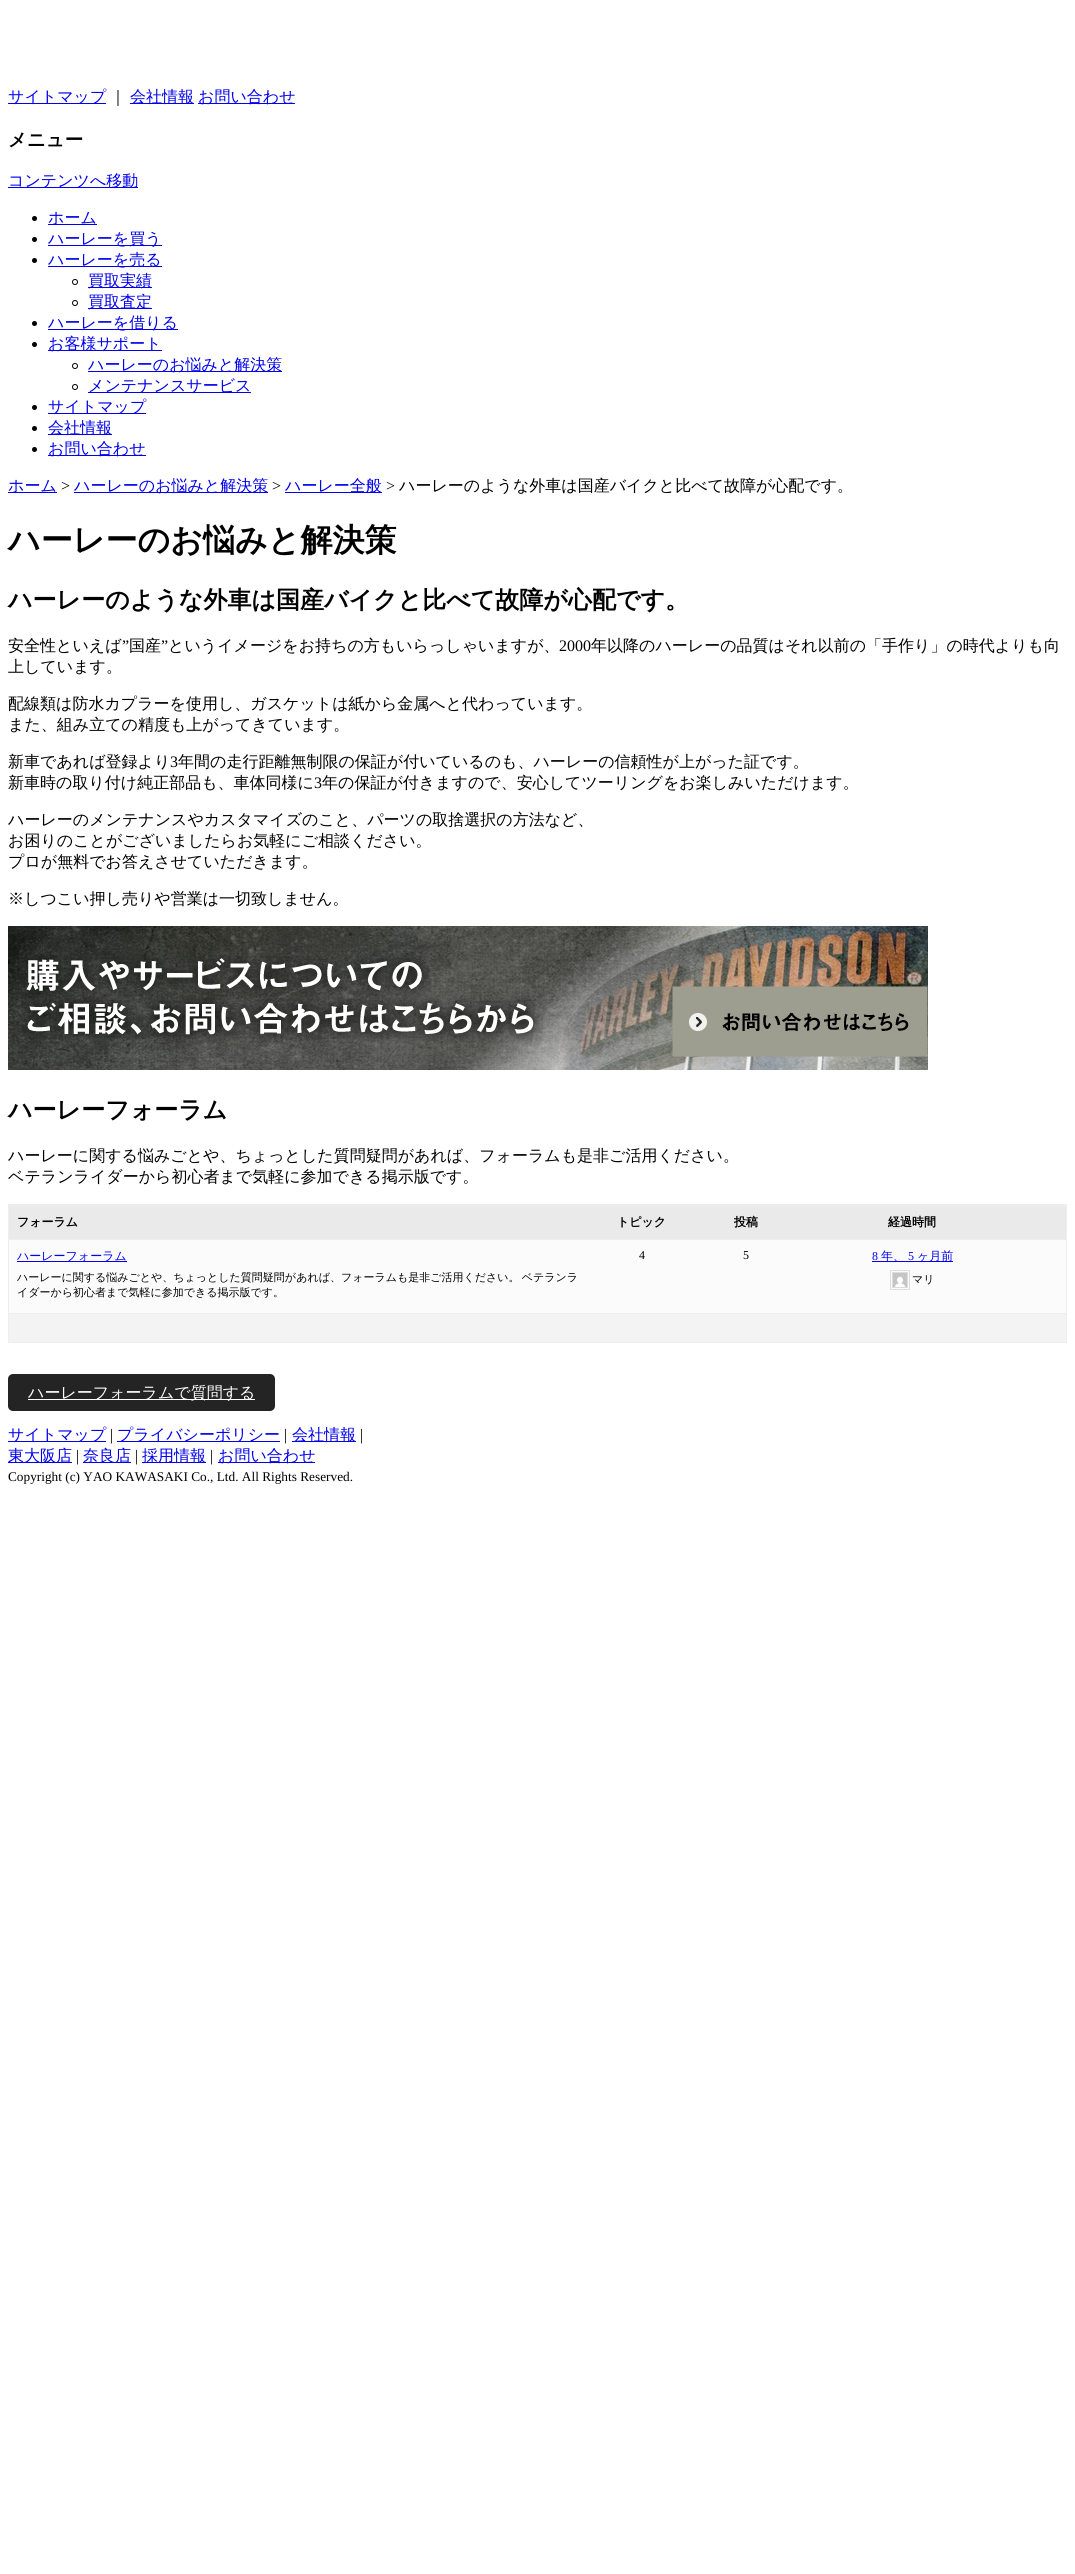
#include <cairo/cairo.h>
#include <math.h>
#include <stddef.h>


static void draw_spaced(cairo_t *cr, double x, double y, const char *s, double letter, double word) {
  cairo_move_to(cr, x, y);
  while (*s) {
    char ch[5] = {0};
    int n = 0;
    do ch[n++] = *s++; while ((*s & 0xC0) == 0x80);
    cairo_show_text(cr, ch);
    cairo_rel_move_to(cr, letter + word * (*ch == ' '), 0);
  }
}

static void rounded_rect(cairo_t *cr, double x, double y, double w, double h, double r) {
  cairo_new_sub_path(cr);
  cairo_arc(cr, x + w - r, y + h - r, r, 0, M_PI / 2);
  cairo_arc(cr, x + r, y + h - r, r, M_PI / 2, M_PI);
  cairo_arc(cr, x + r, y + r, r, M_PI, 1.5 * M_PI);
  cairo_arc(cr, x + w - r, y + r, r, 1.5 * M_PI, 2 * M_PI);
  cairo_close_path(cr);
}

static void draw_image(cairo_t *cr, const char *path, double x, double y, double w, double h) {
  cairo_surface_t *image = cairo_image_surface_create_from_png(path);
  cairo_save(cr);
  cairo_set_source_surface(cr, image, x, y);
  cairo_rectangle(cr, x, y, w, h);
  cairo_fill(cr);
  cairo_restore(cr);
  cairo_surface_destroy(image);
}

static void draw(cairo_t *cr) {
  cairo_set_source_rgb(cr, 1, 1, 1);
  cairo_paint(cr);
  cairo_set_source_rgb(cr, 0, 0, 238 / 255.0);
  cairo_rectangle(cr, 8, 103, 98, 1);
  cairo_fill(cr);
  cairo_rectangle(cr, 130, 103, 64, 1);
  cairo_fill(cr);
  cairo_rectangle(cr, 198, 103, 97, 1);
  cairo_fill(cr);
  cairo_rectangle(cr, 8, 187, 130, 1);
  cairo_fill(cr);
  cairo_set_source_rgb(cr, 0, 0, 0);
  cairo_arc(cr, 34.5, 218.5, 2.5, 0, 2 * M_PI);
  cairo_fill(cr);
  cairo_set_source_rgb(cr, 0, 0, 238 / 255.0);
  cairo_rectangle(cr, 48, 224, 49, 1);
  cairo_fill(cr);
  cairo_set_source_rgb(cr, 0, 0, 0);
  cairo_arc(cr, 34.5, 239.5, 2.5, 0, 2 * M_PI);
  cairo_fill(cr);
  cairo_set_source_rgb(cr, 0, 0, 238 / 255.0);
  cairo_rectangle(cr, 48, 245, 114, 1);
  cairo_fill(cr);
  cairo_set_source_rgb(cr, 0, 0, 0);
  cairo_arc(cr, 34.5, 260.5, 2.5, 0, 2 * M_PI);
  cairo_fill(cr);
  cairo_set_source_rgb(cr, 0, 0, 238 / 255.0);
  cairo_rectangle(cr, 48, 266, 114, 1);
  cairo_fill(cr);
  cairo_arc(cr, 75, 282, 2.5, 0, 2 * M_PI);
  cairo_set_source_rgb(cr, 0, 0, 0);
  cairo_set_line_width(cr, 1);
  cairo_stroke(cr);
  cairo_set_source_rgb(cr, 0, 0, 238 / 255.0);
  cairo_rectangle(cr, 88, 287, 64, 1);
  cairo_fill(cr);
  cairo_arc(cr, 75, 303, 2.5, 0, 2 * M_PI);
  cairo_set_source_rgb(cr, 0, 0, 0);
  cairo_stroke(cr);
  cairo_set_source_rgb(cr, 0, 0, 238 / 255.0);
  cairo_rectangle(cr, 88, 308, 64, 1);
  cairo_fill(cr);
  cairo_set_source_rgb(cr, 0, 0, 0);
  cairo_arc(cr, 34.5, 323.5, 2.5, 0, 2 * M_PI);
  cairo_fill(cr);
  cairo_set_source_rgb(cr, 0, 0, 238 / 255.0);
  cairo_rectangle(cr, 48, 329, 130, 1);
  cairo_fill(cr);
  cairo_set_source_rgb(cr, 0, 0, 0);
  cairo_arc(cr, 34.5, 344.5, 2.5, 0, 2 * M_PI);
  cairo_fill(cr);
  cairo_set_source_rgb(cr, 0, 0, 238 / 255.0);
  cairo_rectangle(cr, 48, 350, 114, 1);
  cairo_fill(cr);
  cairo_arc(cr, 75, 366, 2.5, 0, 2 * M_PI);
  cairo_set_source_rgb(cr, 0, 0, 0);
  cairo_stroke(cr);
  cairo_set_source_rgb(cr, 0, 0, 238 / 255.0);
  cairo_rectangle(cr, 88, 371, 194, 1);
  cairo_fill(cr);
  cairo_arc(cr, 75, 387, 2.5, 0, 2 * M_PI);
  cairo_set_source_rgb(cr, 0, 0, 0);
  cairo_stroke(cr);
  cairo_set_source_rgb(cr, 0, 0, 238 / 255.0);
  cairo_rectangle(cr, 88, 392, 163, 1);
  cairo_fill(cr);
  cairo_set_source_rgb(cr, 0, 0, 0);
  cairo_arc(cr, 34.5, 407.5, 2.5, 0, 2 * M_PI);
  cairo_fill(cr);
  cairo_set_source_rgb(cr, 0, 0, 238 / 255.0);
  cairo_rectangle(cr, 48, 413, 98, 1);
  cairo_fill(cr);
  cairo_set_source_rgb(cr, 0, 0, 0);
  cairo_arc(cr, 34.5, 428.5, 2.5, 0, 2 * M_PI);
  cairo_fill(cr);
  cairo_set_source_rgb(cr, 0, 0, 238 / 255.0);
  cairo_rectangle(cr, 48, 434, 64, 1);
  cairo_fill(cr);
  cairo_set_source_rgb(cr, 0, 0, 0);
  cairo_arc(cr, 34.5, 449.5, 2.5, 0, 2 * M_PI);
  cairo_fill(cr);
  cairo_set_source_rgb(cr, 0, 0, 238 / 255.0);
  cairo_rectangle(cr, 48, 455, 98, 1);
  cairo_fill(cr);
  cairo_rectangle(cr, 8, 492, 49, 1);
  cairo_fill(cr);
  cairo_rectangle(cr, 74, 492, 194, 1);
  cairo_fill(cr);
  cairo_rectangle(cr, 285, 492, 97, 1);
  cairo_fill(cr);
  draw_image(cr, "images/1.png", 8, 926, 920, 144);
  cairo_rectangle(cr, 8.5, 1204.5, 1058, 138);
  cairo_set_source_rgb(cr, 238 / 255.0, 238 / 255.0, 238 / 255.0);
  cairo_stroke(cr);
  cairo_set_source_rgb(cr, 234 / 255.0, 234 / 255.0, 234 / 255.0);
  cairo_rectangle(cr, 9, 1206, 1057, 33);
  cairo_fill(cr);
  cairo_set_source_rgb(cr, 238 / 255.0, 238 / 255.0, 238 / 255.0);
  cairo_rectangle(cr, 9, 1205, 1057, 1);
  cairo_fill(cr);
  cairo_set_source_rgb(cr, 251 / 255.0, 251 / 255.0, 251 / 255.0);
  cairo_rectangle(cr, 9, 1240, 1057, 73);
  cairo_fill(cr);
  cairo_set_source_rgb(cr, 238 / 255.0, 238 / 255.0, 238 / 255.0);
  cairo_rectangle(cr, 9, 1239, 1057, 1);
  cairo_fill(cr);
  cairo_set_source_rgb(cr, 0, 0, 238 / 255.0);
  cairo_rectangle(cr, 17, 1261, 110, 1);
  cairo_fill(cr);
  cairo_rectangle(cr, 872, 1261, 81, 1);
  cairo_fill(cr);
  cairo_rectangle(cr, 890.5, 1270.5, 19, 19);
  cairo_set_source_rgb(cr, 221 / 255.0, 221 / 255.0, 221 / 255.0);
  cairo_stroke(cr);
  cairo_rectangle(cr, 892.5, 1272.5, 15, 15);
  cairo_stroke(cr);
  draw_image(cr, "images/2.png", 893, 1273, 14, 14);
  cairo_set_source_rgb(cr, 243 / 255.0, 243 / 255.0, 243 / 255.0);
  cairo_rectangle(cr, 9, 1314, 1057, 28);
  cairo_fill(cr);
  cairo_set_source_rgb(cr, 238 / 255.0, 238 / 255.0, 238 / 255.0);
  cairo_rectangle(cr, 9, 1313, 1057, 1);
  cairo_fill(cr);
  cairo_set_source_rgb(cr, 36 / 255.0, 36 / 255.0, 36 / 255.0);
  rounded_rect(cr, 8, 1374, 267, 37, 5);
  cairo_fill(cr);
  cairo_set_source_rgb(cr, 1, 1, 1);
  cairo_rectangle(cr, 28, 1399, 227, 1);
  cairo_fill(cr);
  cairo_set_source_rgb(cr, 0, 0, 238 / 255.0);
  cairo_rectangle(cr, 8, 1441, 98, 1);
  cairo_fill(cr);
  cairo_rectangle(cr, 117, 1441, 163, 1);
  cairo_fill(cr);
  cairo_rectangle(cr, 292, 1441, 64, 1);
  cairo_fill(cr);
  cairo_rectangle(cr, 8, 1462, 64, 1);
  cairo_fill(cr);
  cairo_rectangle(cr, 83, 1462, 48, 1);
  cairo_fill(cr);
  cairo_rectangle(cr, 142, 1462, 64, 1);
  cairo_fill(cr);
  cairo_rectangle(cr, 218, 1462, 97, 1);
  cairo_fill(cr);
  cairo_select_font_face(cr, "WenQuanYi Zen Hei Medium", CAIRO_FONT_SLANT_NORMAL, CAIRO_FONT_WEIGHT_NORMAL);
  cairo_set_font_size(cr, 16);
  cairo_move_to(cr, 8, 102);
  cairo_show_text(cr, "サイトマップ");
  cairo_set_source_rgb(cr, 0, 0, 0);
  cairo_move_to(cr, 110, 102);
  cairo_show_text(cr, "｜");
  cairo_set_source_rgb(cr, 0, 0, 238 / 255.0);
  cairo_move_to(cr, 130, 102);
  cairo_show_text(cr, "会社情報");
  cairo_move_to(cr, 198, 102);
  cairo_show_text(cr, "お問い合わせ");
  cairo_select_font_face(cr, "WenQuanYi Zen Hei", CAIRO_FONT_SLANT_NORMAL, CAIRO_FONT_WEIGHT_BOLD);
  cairo_set_font_size(cr, 18.5);
  cairo_set_source_rgb(cr, 0, 0, 0);
  cairo_move_to(cr, 8, 146);
  cairo_show_text(cr, "メニュー");
  cairo_select_font_face(cr, "WenQuanYi Zen Hei Medium", CAIRO_FONT_SLANT_NORMAL, CAIRO_FONT_WEIGHT_NORMAL);
  cairo_set_font_size(cr, 16);
  cairo_set_source_rgb(cr, 0, 0, 238 / 255.0);
  cairo_move_to(cr, 8, 186);
  cairo_show_text(cr, "コンテンツへ移動");
  cairo_move_to(cr, 48, 223);
  cairo_show_text(cr, "ホーム");
  cairo_move_to(cr, 48, 244);
  cairo_show_text(cr, "ハーレーを買う");
  cairo_move_to(cr, 48, 265);
  cairo_show_text(cr, "ハーレーを売る");
  cairo_move_to(cr, 88, 286);
  cairo_show_text(cr, "買取実績");
  cairo_move_to(cr, 88, 307);
  cairo_show_text(cr, "買取査定");
  cairo_move_to(cr, 48, 328);
  cairo_show_text(cr, "ハーレーを借りる");
  cairo_move_to(cr, 48, 349);
  cairo_show_text(cr, "お客様サポート");
  cairo_move_to(cr, 88, 370);
  cairo_show_text(cr, "ハーレーのお悩みと解決策");
  cairo_move_to(cr, 88, 391);
  cairo_show_text(cr, "メンテナンスサービス");
  cairo_move_to(cr, 48, 412);
  cairo_show_text(cr, "サイトマップ");
  cairo_move_to(cr, 48, 433);
  cairo_show_text(cr, "会社情報");
  cairo_move_to(cr, 48, 454);
  cairo_show_text(cr, "お問い合わせ");
  cairo_move_to(cr, 8, 491);
  cairo_show_text(cr, "ホーム");
  cairo_select_font_face(cr, "Liberation Serif", CAIRO_FONT_SLANT_NORMAL, CAIRO_FONT_WEIGHT_NORMAL);
  cairo_set_source_rgb(cr, 0, 0, 0);
  cairo_move_to(cr, 61, 491);
  cairo_show_text(cr, ">");
  cairo_select_font_face(cr, "WenQuanYi Zen Hei Medium", CAIRO_FONT_SLANT_NORMAL, CAIRO_FONT_WEIGHT_NORMAL);
  cairo_set_source_rgb(cr, 0, 0, 238 / 255.0);
  cairo_move_to(cr, 74, 491);
  cairo_show_text(cr, "ハーレーのお悩みと解決策");
  cairo_select_font_face(cr, "Liberation Serif", CAIRO_FONT_SLANT_NORMAL, CAIRO_FONT_WEIGHT_NORMAL);
  cairo_set_source_rgb(cr, 0, 0, 0);
  cairo_move_to(cr, 272, 491);
  cairo_show_text(cr, ">");
  cairo_select_font_face(cr, "WenQuanYi Zen Hei Medium", CAIRO_FONT_SLANT_NORMAL, CAIRO_FONT_WEIGHT_NORMAL);
  cairo_set_source_rgb(cr, 0, 0, 238 / 255.0);
  cairo_move_to(cr, 285, 491);
  cairo_show_text(cr, "ハーレー全般");
  cairo_select_font_face(cr, "Liberation Serif", CAIRO_FONT_SLANT_NORMAL, CAIRO_FONT_WEIGHT_NORMAL);
  cairo_set_source_rgb(cr, 0, 0, 0);
  cairo_move_to(cr, 386, 491);
  cairo_show_text(cr, ">");
  cairo_select_font_face(cr, "WenQuanYi Zen Hei Medium", CAIRO_FONT_SLANT_NORMAL, CAIRO_FONT_WEIGHT_NORMAL);
  cairo_move_to(cr, 399, 491);
  cairo_show_text(cr, "ハーレーのような外車は国産バイクと比べて故障が心配です。");
  cairo_select_font_face(cr, "WenQuanYi Zen Hei", CAIRO_FONT_SLANT_NORMAL, CAIRO_FONT_WEIGHT_BOLD);
  cairo_set_font_size(cr, 32);
  cairo_move_to(cr, 8, 551);
  cairo_show_text(cr, "ハーレーのお悩みと解決策");
  cairo_set_font_size(cr, 24);
  cairo_move_to(cr, 8, 608);
  cairo_show_text(cr, "ハーレーのような外車は国産バイクと比べて故障が心配です。");
  cairo_select_font_face(cr, "WenQuanYi Zen Hei Medium", CAIRO_FONT_SLANT_NORMAL, CAIRO_FONT_WEIGHT_NORMAL);
  cairo_set_font_size(cr, 16);
  cairo_move_to(cr, 8, 651);
  cairo_show_text(cr, "安全性といえば");
  cairo_select_font_face(cr, "Liberation Serif", CAIRO_FONT_SLANT_NORMAL, CAIRO_FONT_WEIGHT_NORMAL);
  cairo_move_to(cr, 122, 651);
  cairo_show_text(cr, "”");
  cairo_select_font_face(cr, "WenQuanYi Zen Hei Medium", CAIRO_FONT_SLANT_NORMAL, CAIRO_FONT_WEIGHT_NORMAL);
  cairo_move_to(cr, 129, 651);
  cairo_show_text(cr, "国産");
  cairo_select_font_face(cr, "Liberation Serif", CAIRO_FONT_SLANT_NORMAL, CAIRO_FONT_WEIGHT_NORMAL);
  cairo_move_to(cr, 161, 651);
  cairo_show_text(cr, "”");
  cairo_select_font_face(cr, "WenQuanYi Zen Hei Medium", CAIRO_FONT_SLANT_NORMAL, CAIRO_FONT_WEIGHT_NORMAL);
  cairo_move_to(cr, 168, 651);
  cairo_show_text(cr, "というイメージをお持ちの方もいらっしゃいますが、");
  cairo_select_font_face(cr, "Liberation Serif", CAIRO_FONT_SLANT_NORMAL, CAIRO_FONT_WEIGHT_NORMAL);
  cairo_move_to(cr, 559, 651);
  cairo_show_text(cr, "2000");
  cairo_select_font_face(cr, "WenQuanYi Zen Hei Medium", CAIRO_FONT_SLANT_NORMAL, CAIRO_FONT_WEIGHT_NORMAL);
  cairo_move_to(cr, 591, 651);
  cairo_show_text(cr, "年以降のハーレーの品質はそれ以前の「手作り」の時代よりも向");
  cairo_move_to(cr, 8, 672);
  cairo_show_text(cr, "上しています。");
  cairo_move_to(cr, 8, 709);
  cairo_show_text(cr, "配線類は防水カプラーを使用し、ガスケットは紙から金属へと代わっています。");
  cairo_move_to(cr, 8, 730);
  cairo_show_text(cr, "また、組み立ての精度も上がってきています。");
  cairo_move_to(cr, 8, 767);
  cairo_show_text(cr, "新車であれば登録より");
  cairo_select_font_face(cr, "Liberation Serif", CAIRO_FONT_SLANT_NORMAL, CAIRO_FONT_WEIGHT_NORMAL);
  cairo_move_to(cr, 170, 767);
  cairo_show_text(cr, "3");
  cairo_select_font_face(cr, "WenQuanYi Zen Hei Medium", CAIRO_FONT_SLANT_NORMAL, CAIRO_FONT_WEIGHT_NORMAL);
  cairo_move_to(cr, 178, 767);
  cairo_show_text(cr, "年間の走行距離無制限の保証が付いているのも、ハーレーの信頼性が上がった証です。");
  cairo_move_to(cr, 8, 788);
  cairo_show_text(cr, "新車時の取り付け純正部品も、車体同様に");
  cairo_select_font_face(cr, "Liberation Serif", CAIRO_FONT_SLANT_NORMAL, CAIRO_FONT_WEIGHT_NORMAL);
  cairo_move_to(cr, 314, 788);
  cairo_show_text(cr, "3");
  cairo_select_font_face(cr, "WenQuanYi Zen Hei Medium", CAIRO_FONT_SLANT_NORMAL, CAIRO_FONT_WEIGHT_NORMAL);
  cairo_move_to(cr, 322, 788);
  cairo_show_text(cr, "年の保証が付きますので、安心してツーリングをお楽しみいただけます。");
  cairo_move_to(cr, 8, 825);
  cairo_show_text(cr, "ハーレーのメンテナンスやカスタマイズのこと、パーツの取捨選択の方法など、");
  cairo_move_to(cr, 8, 846);
  cairo_show_text(cr, "お困りのことがございましたらお気軽にご相談ください。");
  cairo_move_to(cr, 8, 867);
  cairo_show_text(cr, "プロが無料でお答えさせていただきます。");
  cairo_move_to(cr, 8, 904);
  cairo_show_text(cr, "※しつこい押し売りや営業は一切致しません。");
  cairo_select_font_face(cr, "WenQuanYi Zen Hei", CAIRO_FONT_SLANT_NORMAL, CAIRO_FONT_WEIGHT_BOLD);
  cairo_set_font_size(cr, 24);
  cairo_move_to(cr, 8, 1118);
  cairo_show_text(cr, "ハーレーフォーラム");
  cairo_select_font_face(cr, "WenQuanYi Zen Hei Medium", CAIRO_FONT_SLANT_NORMAL, CAIRO_FONT_WEIGHT_NORMAL);
  cairo_set_font_size(cr, 16);
  cairo_move_to(cr, 8, 1161);
  cairo_show_text(cr, "ハーレーに関する悩みごとや、ちょっとした質問疑問があれば、フォーラムも是非ご活用ください。");
  cairo_move_to(cr, 8, 1182);
  cairo_show_text(cr, "ベテランライダーから初心者まで気軽に参加できる掲示版です。");
  cairo_select_font_face(cr, "WenQuanYi Zen Hei", CAIRO_FONT_SLANT_NORMAL, CAIRO_FONT_WEIGHT_BOLD);
  cairo_set_font_size(cr, 12);
  cairo_move_to(cr, 17, 1226);
  cairo_show_text(cr, "フォーラム");
  cairo_move_to(cr, 617, 1226);
  cairo_show_text(cr, "トピック");
  cairo_move_to(cr, 734, 1226);
  cairo_show_text(cr, "投稿");
  cairo_move_to(cr, 888, 1226);
  cairo_show_text(cr, "経過時間");
  cairo_select_font_face(cr, "WenQuanYi Zen Hei Medium", CAIRO_FONT_SLANT_NORMAL, CAIRO_FONT_WEIGHT_NORMAL);
  cairo_set_source_rgb(cr, 0, 0, 238 / 255.0);
  cairo_move_to(cr, 17, 1260);
  cairo_show_text(cr, "ハーレーフォーラム");
  cairo_set_font_size(cr, 11);
  cairo_set_source_rgb(cr, 0, 0, 0);
  draw_spaced(cr, 17, 1281, "ハーレーに関する悩みごとや、ちょっとした質問疑問があれば、フォーラムも是非ご活用ください。 ベテランラ", 0, -1);
  cairo_move_to(cr, 17, 1296);
  cairo_show_text(cr, "イダーから初心者まで気軽に参加できる掲示版です。");
  cairo_select_font_face(cr, "Liberation Serif", CAIRO_FONT_SLANT_NORMAL, CAIRO_FONT_WEIGHT_NORMAL);
  cairo_set_font_size(cr, 12);
  cairo_move_to(cr, 639, 1259);
  cairo_show_text(cr, "4");
  cairo_move_to(cr, 743, 1259);
  cairo_show_text(cr, "5");
  cairo_set_source_rgb(cr, 0, 0, 238 / 255.0);
  cairo_move_to(cr, 872, 1260);
  cairo_show_text(cr, "8");
  cairo_select_font_face(cr, "WenQuanYi Zen Hei Medium", CAIRO_FONT_SLANT_NORMAL, CAIRO_FONT_WEIGHT_NORMAL);
  cairo_move_to(cr, 881, 1260);
  cairo_show_text(cr, "年、");
  cairo_select_font_face(cr, "Liberation Serif", CAIRO_FONT_SLANT_NORMAL, CAIRO_FONT_WEIGHT_NORMAL);
  cairo_move_to(cr, 908, 1260);
  cairo_show_text(cr, "5");
  cairo_select_font_face(cr, "WenQuanYi Zen Hei Medium", CAIRO_FONT_SLANT_NORMAL, CAIRO_FONT_WEIGHT_NORMAL);
  cairo_move_to(cr, 917, 1260);
  cairo_show_text(cr, "ヶ月前");
  cairo_set_font_size(cr, 11);
  cairo_set_source_rgb(cr, 0, 0, 0);
  cairo_move_to(cr, 912, 1283);
  cairo_show_text(cr, "マリ");
  cairo_set_font_size(cr, 16);
  cairo_set_source_rgb(cr, 1, 1, 1);
  cairo_move_to(cr, 28, 1398);
  cairo_show_text(cr, "ハーレーフォーラムで質問する");
  cairo_set_source_rgb(cr, 0, 0, 238 / 255.0);
  cairo_move_to(cr, 8, 1440);
  cairo_show_text(cr, "サイトマップ");
  cairo_select_font_face(cr, "Liberation Serif", CAIRO_FONT_SLANT_NORMAL, CAIRO_FONT_WEIGHT_NORMAL);
  cairo_set_source_rgb(cr, 0, 0, 0);
  cairo_move_to(cr, 110, 1440);
  cairo_show_text(cr, "|");
  cairo_select_font_face(cr, "WenQuanYi Zen Hei Medium", CAIRO_FONT_SLANT_NORMAL, CAIRO_FONT_WEIGHT_NORMAL);
  cairo_set_source_rgb(cr, 0, 0, 238 / 255.0);
  cairo_move_to(cr, 117, 1440);
  cairo_show_text(cr, "プライバシーポリシー");
  cairo_select_font_face(cr, "Liberation Serif", CAIRO_FONT_SLANT_NORMAL, CAIRO_FONT_WEIGHT_NORMAL);
  cairo_set_source_rgb(cr, 0, 0, 0);
  cairo_move_to(cr, 284, 1440);
  cairo_show_text(cr, "|");
  cairo_select_font_face(cr, "WenQuanYi Zen Hei Medium", CAIRO_FONT_SLANT_NORMAL, CAIRO_FONT_WEIGHT_NORMAL);
  cairo_set_source_rgb(cr, 0, 0, 238 / 255.0);
  cairo_move_to(cr, 292, 1440);
  cairo_show_text(cr, "会社情報");
  cairo_select_font_face(cr, "Liberation Serif", CAIRO_FONT_SLANT_NORMAL, CAIRO_FONT_WEIGHT_NORMAL);
  cairo_set_source_rgb(cr, 0, 0, 0);
  cairo_move_to(cr, 360, 1440);
  cairo_show_text(cr, "|");
  cairo_select_font_face(cr, "WenQuanYi Zen Hei Medium", CAIRO_FONT_SLANT_NORMAL, CAIRO_FONT_WEIGHT_NORMAL);
  cairo_set_source_rgb(cr, 0, 0, 238 / 255.0);
  cairo_move_to(cr, 8, 1461);
  cairo_show_text(cr, "東大阪店");
  cairo_select_font_face(cr, "Liberation Serif", CAIRO_FONT_SLANT_NORMAL, CAIRO_FONT_WEIGHT_NORMAL);
  cairo_set_source_rgb(cr, 0, 0, 0);
  cairo_move_to(cr, 76, 1461);
  cairo_show_text(cr, "|");
  cairo_select_font_face(cr, "WenQuanYi Zen Hei Medium", CAIRO_FONT_SLANT_NORMAL, CAIRO_FONT_WEIGHT_NORMAL);
  cairo_set_source_rgb(cr, 0, 0, 238 / 255.0);
  cairo_move_to(cr, 83, 1461);
  cairo_show_text(cr, "奈良店");
  cairo_select_font_face(cr, "Liberation Serif", CAIRO_FONT_SLANT_NORMAL, CAIRO_FONT_WEIGHT_NORMAL);
  cairo_set_source_rgb(cr, 0, 0, 0);
  cairo_move_to(cr, 135, 1461);
  cairo_show_text(cr, "|");
  cairo_select_font_face(cr, "WenQuanYi Zen Hei Medium", CAIRO_FONT_SLANT_NORMAL, CAIRO_FONT_WEIGHT_NORMAL);
  cairo_set_source_rgb(cr, 0, 0, 238 / 255.0);
  cairo_move_to(cr, 142, 1461);
  cairo_show_text(cr, "採用情報");
  cairo_select_font_face(cr, "Liberation Serif", CAIRO_FONT_SLANT_NORMAL, CAIRO_FONT_WEIGHT_NORMAL);
  cairo_set_source_rgb(cr, 0, 0, 0);
  cairo_move_to(cr, 210, 1461);
  cairo_show_text(cr, "|");
  cairo_select_font_face(cr, "WenQuanYi Zen Hei Medium", CAIRO_FONT_SLANT_NORMAL, CAIRO_FONT_WEIGHT_NORMAL);
  cairo_set_source_rgb(cr, 0, 0, 238 / 255.0);
  cairo_move_to(cr, 218, 1461);
  cairo_show_text(cr, "お問い合わせ");
  cairo_select_font_face(cr, "Liberation Serif", CAIRO_FONT_SLANT_NORMAL, CAIRO_FONT_WEIGHT_NORMAL);
  cairo_set_font_size(cr, 13.3);
  cairo_set_source_rgb(cr, 0, 0, 0);
  cairo_move_to(cr, 8, 1481);
  cairo_show_text(cr, "Copyright (c) YAO KAWASAKI Co., Ltd. All Rights Reserved.");
}

int main(void) {
  cairo_surface_t *surface = cairo_image_surface_create(CAIRO_FORMAT_RGB24, 1075, 2574);
  cairo_t *cr = cairo_create(surface);
  cairo_font_options_t *options = cairo_font_options_create();
  cairo_font_options_set_hint_metrics(options, CAIRO_HINT_METRICS_OFF);
  cairo_font_options_set_hint_style(options, CAIRO_HINT_STYLE_NONE);
  cairo_set_font_options(cr, options);
  cairo_set_miter_limit(cr, 4);
  draw(cr);
  cairo_surface_write_to_png(surface, "out.png");
  cairo_font_options_destroy(options);
  cairo_destroy(cr);
  cairo_surface_destroy(surface);
  return 0;
}
